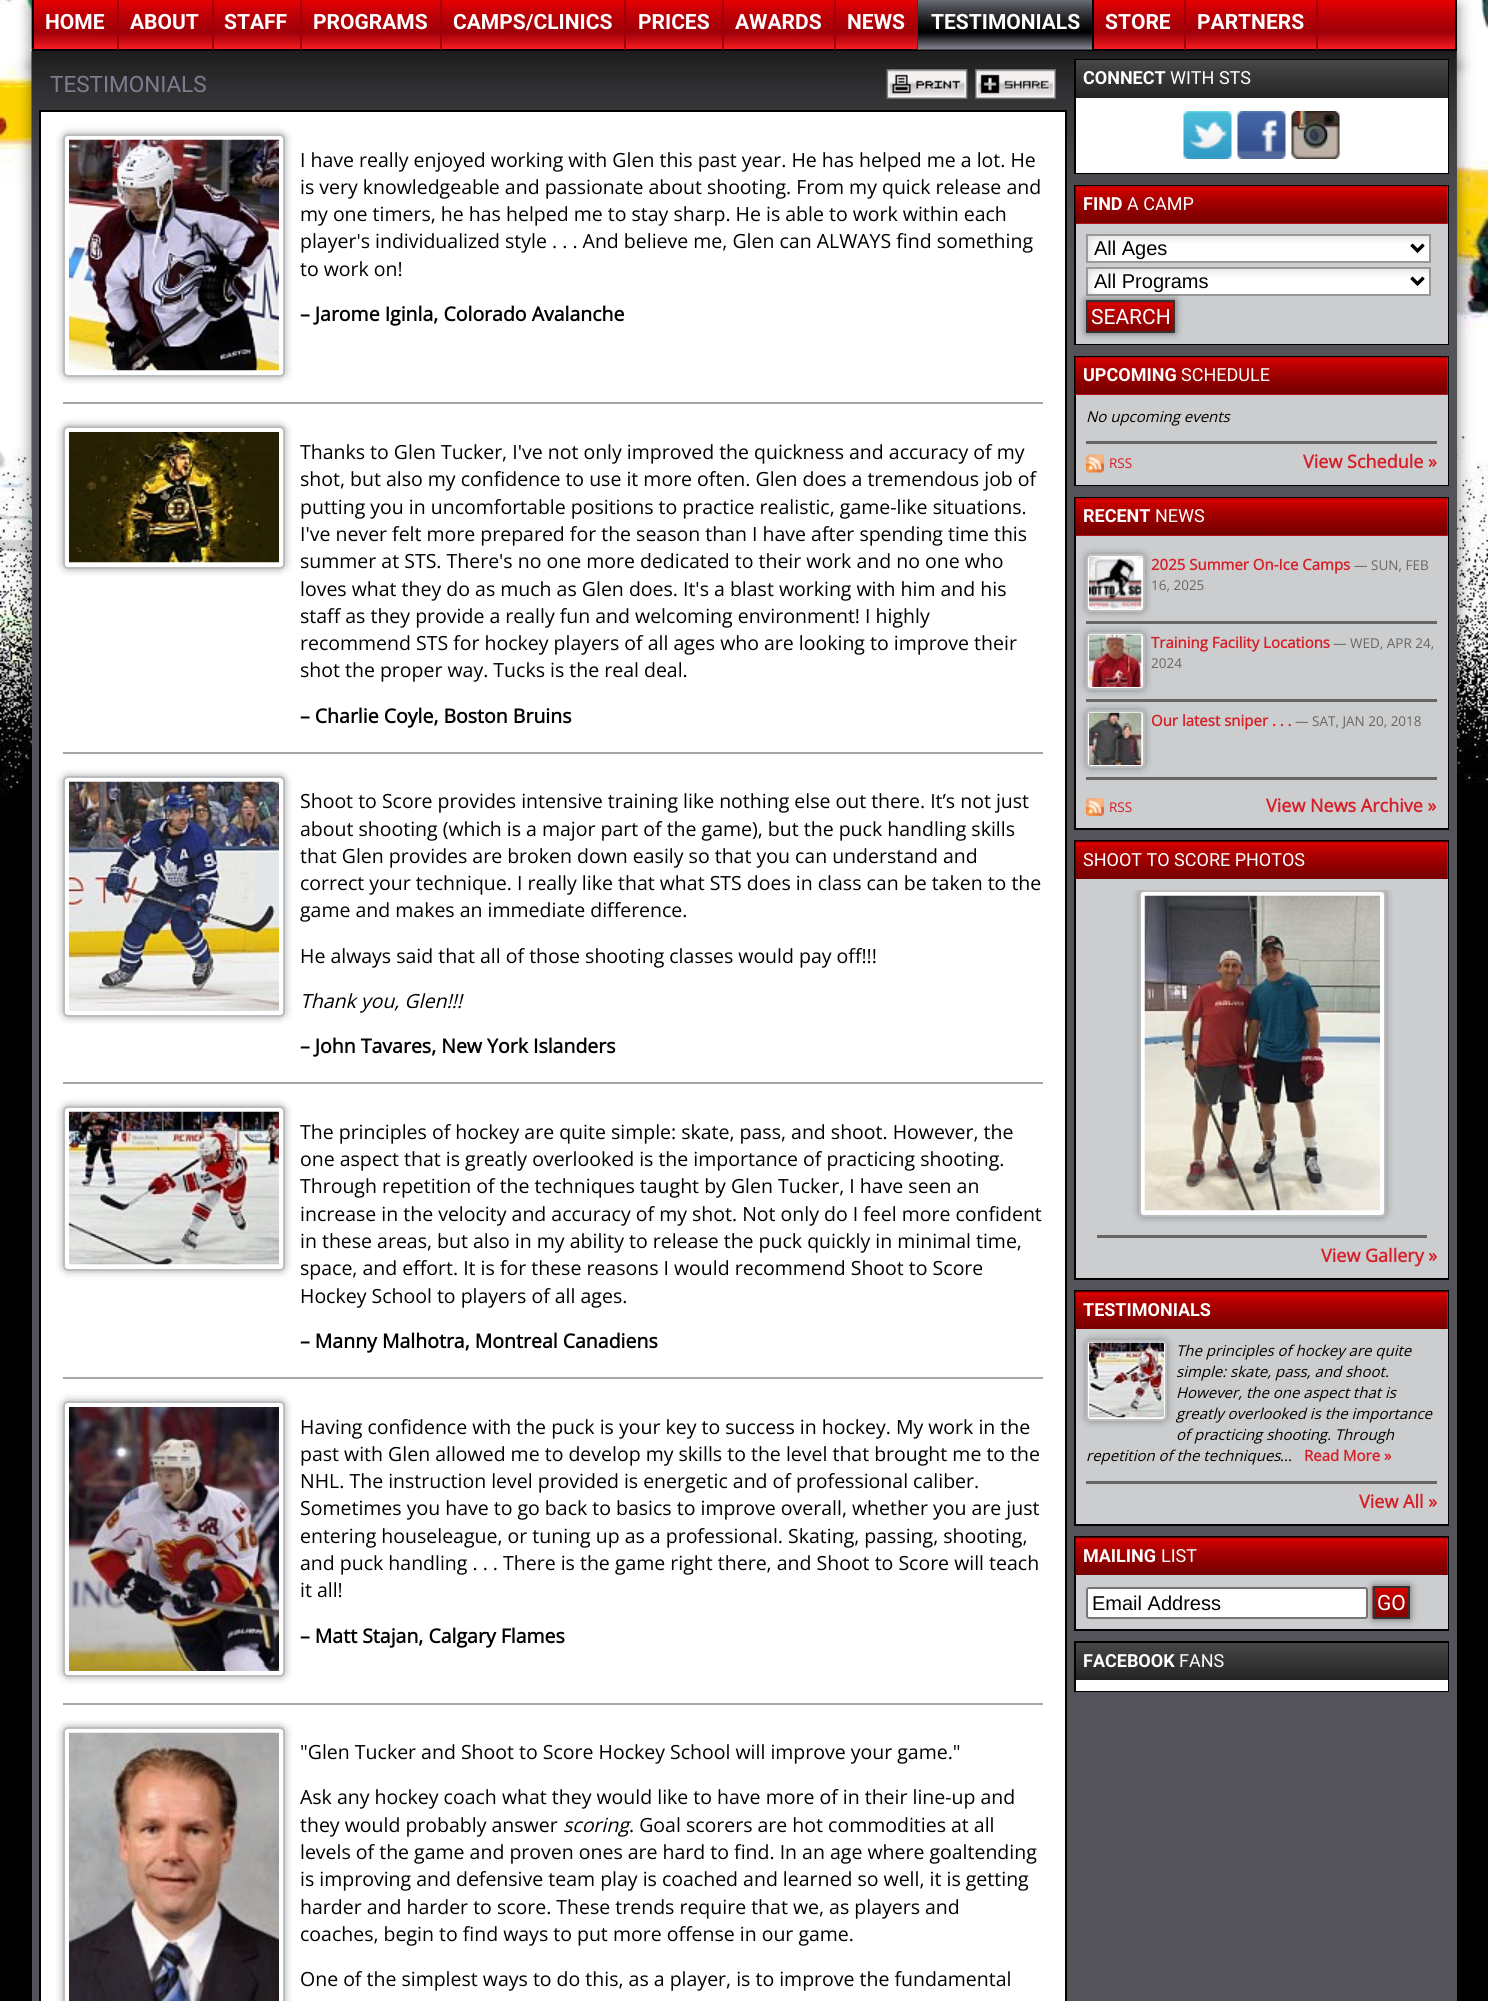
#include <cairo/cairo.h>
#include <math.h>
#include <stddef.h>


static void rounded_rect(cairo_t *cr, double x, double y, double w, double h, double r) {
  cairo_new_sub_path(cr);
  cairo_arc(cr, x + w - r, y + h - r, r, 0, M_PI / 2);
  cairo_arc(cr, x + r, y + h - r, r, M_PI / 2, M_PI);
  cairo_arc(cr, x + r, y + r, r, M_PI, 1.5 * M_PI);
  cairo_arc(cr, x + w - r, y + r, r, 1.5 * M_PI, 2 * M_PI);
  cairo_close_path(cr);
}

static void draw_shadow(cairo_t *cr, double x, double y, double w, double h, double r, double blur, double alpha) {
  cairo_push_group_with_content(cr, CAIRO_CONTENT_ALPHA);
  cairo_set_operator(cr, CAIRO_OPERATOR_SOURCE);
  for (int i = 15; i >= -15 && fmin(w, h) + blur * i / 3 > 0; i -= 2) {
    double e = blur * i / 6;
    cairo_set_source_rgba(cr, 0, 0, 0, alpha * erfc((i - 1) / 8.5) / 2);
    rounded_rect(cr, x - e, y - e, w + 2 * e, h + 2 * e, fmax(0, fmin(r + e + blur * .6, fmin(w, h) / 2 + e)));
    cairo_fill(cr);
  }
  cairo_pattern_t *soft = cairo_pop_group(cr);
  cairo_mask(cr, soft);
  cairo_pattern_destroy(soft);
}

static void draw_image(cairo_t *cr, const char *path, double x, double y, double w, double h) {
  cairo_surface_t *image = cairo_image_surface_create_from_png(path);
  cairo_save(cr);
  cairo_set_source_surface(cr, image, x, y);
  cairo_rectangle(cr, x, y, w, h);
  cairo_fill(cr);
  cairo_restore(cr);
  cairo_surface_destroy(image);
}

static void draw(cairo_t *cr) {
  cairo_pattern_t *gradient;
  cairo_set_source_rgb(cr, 0, 0, 0);
  cairo_paint(cr);
  draw_image(cr, "images/1.png", 0, 0, 1488, 797);
  draw_shadow(cr, 32, 6, 1425, 60, 0, 7.5, 0.5);
  draw_image(cr, "images/2.png", 31, 0, 1424, 50);
  cairo_rectangle(cr, 33, -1, 1423, 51);
  cairo_set_source_rgb(cr, 0, 0, 0);
  cairo_stroke(cr);
  cairo_set_source_rgb(cr, 0, 0, 0);
  draw_shadow(cr, 32, 66, 1425, 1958, 0, 7.5, 0.5);
  cairo_set_source_rgb(cr, 161 / 255.0, 0, 8 / 255.0);
  cairo_rectangle(cr, 117, 0, 2, 50);
  cairo_fill(cr);
  cairo_rectangle(cr, 212, 0, 2, 50);
  cairo_fill(cr);
  cairo_rectangle(cr, 300, 0, 2, 50);
  cairo_fill(cr);
  cairo_rectangle(cr, 440, 0, 2, 50);
  cairo_fill(cr);
  cairo_rectangle(cr, 624, 0, 2, 50);
  cairo_fill(cr);
  cairo_rectangle(cr, 722, 0, 2, 50);
  cairo_fill(cr);
  cairo_rectangle(cr, 834, 0, 2, 50);
  cairo_fill(cr);
  cairo_rectangle(cr, 917, 0, 2, 50);
  cairo_fill(cr);
  draw_image(cr, "images/3.png", 918, 0, 174, 50);
  cairo_set_source_rgb(cr, 0, 0, 0);
  cairo_rectangle(cr, 1092, 0, 2, 50);
  cairo_fill(cr);
  cairo_set_source_rgb(cr, 161 / 255.0, 0, 8 / 255.0);
  cairo_rectangle(cr, 1184, 0, 2, 50);
  cairo_fill(cr);
  cairo_rectangle(cr, 1316, 0, 2, 50);
  cairo_fill(cr);
  cairo_set_source_rgb(cr, 84 / 255.0, 83 / 255.0, 90 / 255.0);
  cairo_rectangle(cr, 32, 51, 1425, 1950);
  cairo_fill(cr);
  draw_image(cr, "images/4.png", 31, 51, 1426, 458);
  draw_image(cr, "images/5.png", 886, 69, 82, 30);
  draw_image(cr, "images/6.png", 975, 69, 81, 30);
  cairo_set_source_rgb(cr, 1, 1, 1);
  cairo_rectangle(cr, 40, 111, 1026, 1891);
  cairo_fill_preserve(cr);
  cairo_set_source_rgb(cr, 0, 0, 0);
  cairo_stroke(cr);
  cairo_set_source_rgb(cr, 166 / 255.0, 166 / 255.0, 166 / 255.0);
  cairo_rectangle(cr, 63, 402, 980, 2);
  cairo_fill(cr);
  cairo_set_source_rgb(cr, 0, 0, 0);
  draw_shadow(cr, 63, 134, 222, 243, 5, 4, 0.35);
  cairo_set_source_rgb(cr, 1, 1, 1);
  rounded_rect(cr, 64, 135, 220, 241, 4);
  cairo_fill_preserve(cr);
  cairo_set_source_rgb(cr, 187 / 255.0, 189 / 255.0, 191 / 255.0);
  cairo_stroke(cr);
  draw_image(cr, "images/7.png", 69, 139, 210, 232);
  cairo_set_source_rgb(cr, 166 / 255.0, 166 / 255.0, 166 / 255.0);
  cairo_rectangle(cr, 63, 752, 980, 2);
  cairo_fill(cr);
  cairo_set_source_rgb(cr, 0, 0, 0);
  draw_shadow(cr, 63, 426, 222, 143, 5, 4, 0.35);
  cairo_set_source_rgb(cr, 1, 1, 1);
  rounded_rect(cr, 64, 427, 220, 141, 4);
  cairo_fill_preserve(cr);
  cairo_set_source_rgb(cr, 187 / 255.0, 189 / 255.0, 191 / 255.0);
  cairo_stroke(cr);
  draw_image(cr, "images/8.png", 69, 432, 210, 131);
  cairo_set_source_rgb(cr, 166 / 255.0, 166 / 255.0, 166 / 255.0);
  cairo_rectangle(cr, 63, 1082, 980, 2);
  cairo_fill(cr);
  cairo_set_source_rgb(cr, 0, 0, 0);
  draw_shadow(cr, 63, 776, 222, 241, 5, 4, 0.35);
  cairo_set_source_rgb(cr, 1, 1, 1);
  rounded_rect(cr, 64, 777, 220, 239, 4);
  cairo_fill_preserve(cr);
  cairo_set_source_rgb(cr, 187 / 255.0, 189 / 255.0, 191 / 255.0);
  cairo_stroke(cr);
  draw_image(cr, "images/9.png", 69, 781, 210, 230);
  cairo_set_source_rgb(cr, 166 / 255.0, 166 / 255.0, 166 / 255.0);
  cairo_rectangle(cr, 63, 1377, 980, 2);
  cairo_fill(cr);
  cairo_set_source_rgb(cr, 0, 0, 0);
  draw_shadow(cr, 63, 1106, 222, 165, 5, 4, 0.35);
  cairo_set_source_rgb(cr, 1, 1, 1);
  rounded_rect(cr, 64, 1107, 220, 163, 4);
  cairo_fill_preserve(cr);
  cairo_set_source_rgb(cr, 187 / 255.0, 189 / 255.0, 191 / 255.0);
  cairo_stroke(cr);
  draw_image(cr, "images/10.png", 69, 1111, 210, 154);
  cairo_set_source_rgb(cr, 166 / 255.0, 166 / 255.0, 166 / 255.0);
  cairo_rectangle(cr, 63, 1703, 980, 2);
  cairo_fill(cr);
  cairo_set_source_rgb(cr, 0, 0, 0);
  draw_shadow(cr, 63, 1401, 222, 276, 5, 4, 0.35);
  cairo_set_source_rgb(cr, 1, 1, 1);
  rounded_rect(cr, 64, 1402, 220, 274, 4);
  cairo_fill_preserve(cr);
  cairo_set_source_rgb(cr, 187 / 255.0, 189 / 255.0, 191 / 255.0);
  cairo_stroke(cr);
  draw_image(cr, "images/11.png", 69, 1407, 210, 264);
  cairo_set_source_rgb(cr, 0, 0, 0);
  draw_shadow(cr, 63, 1727, 222, 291, 5, 4, 0.35);
  cairo_set_source_rgb(cr, 1, 1, 1);
  rounded_rect(cr, 64, 1728, 220, 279, 4);
  cairo_fill_preserve(cr);
  cairo_set_source_rgb(cr, 187 / 255.0, 189 / 255.0, 191 / 255.0);
  cairo_stroke(cr);
  draw_image(cr, "images/12.png", 69, 1732, 210, 269);
  cairo_rectangle(cr, 1075, 60, 373, 113);
  cairo_set_source_rgb(cr, 0, 0, 0);
  cairo_stroke(cr);
  gradient = cairo_pattern_create_linear(1262, 60, 1262, 98);
  cairo_pattern_add_color_stop_rgba(gradient, 0, 71 / 255.0, 71 / 255.0, 71 / 255.0, 1);
  cairo_pattern_add_color_stop_rgba(gradient, 1, 36 / 255.0, 36 / 255.0, 36 / 255.0, 1);
  cairo_set_source(cr, gradient);
  cairo_pattern_destroy(gradient);
  cairo_rectangle(cr, 1076, 60, 372, 38);
  cairo_fill(cr);
  cairo_set_source_rgb(cr, 1, 1, 1);
  cairo_rectangle(cr, 1076, 98, 372, 75);
  cairo_fill(cr);
  draw_image(cr, "images/13.png", 1183, 111, 49, 48);
  draw_image(cr, "images/14.png", 1237, 111, 49, 48);
  draw_image(cr, "images/15.png", 1291, 111, 49, 48);
  cairo_rectangle(cr, 1075, 186, 373, 158);
  cairo_set_source_rgb(cr, 0, 0, 0);
  cairo_stroke(cr);
  cairo_set_source_rgb(cr, 246 / 255.0, 28 / 255.0, 35 / 255.0);
  cairo_rectangle(cr, 1076, 186, 372, 38);
  cairo_fill(cr);
  draw_image(cr, "images/16.png", 1075, 186, 373, 38);
  cairo_set_source_rgb(cr, 203 / 255.0, 205 / 255.0, 207 / 255.0);
  cairo_rectangle(cr, 1076, 224, 372, 120);
  cairo_fill(cr);
  cairo_set_source_rgb(cr, 1, 1, 1);
  cairo_rectangle(cr, 1096, 244, 333, 17);
  cairo_fill(cr);
  draw_image(cr, "images/17.png", 1088, 236, 341, 25);
  cairo_rectangle(cr, 1087, 235, 343, 27);
  cairo_set_source_rgb(cr, 153 / 255.0, 153 / 255.0, 153 / 255.0);
  cairo_stroke(cr);
  cairo_new_path(cr);
  cairo_move_to(cr, 1411.5, 245);
  cairo_line_to(cr, 1417.5, 251);
  cairo_line_to(cr, 1423.5, 245);
  cairo_set_source_rgb(cr, 0, 0, 0);
  cairo_set_line_width(cr, 3);
  cairo_stroke(cr);
  cairo_set_source_rgb(cr, 1, 1, 1);
  cairo_rectangle(cr, 1096, 277, 333, 17);
  cairo_fill(cr);
  draw_image(cr, "images/17.png", 1088, 269, 341, 25);
  cairo_rectangle(cr, 1087, 268, 343, 27);
  cairo_set_source_rgb(cr, 153 / 255.0, 153 / 255.0, 153 / 255.0);
  cairo_set_line_width(cr, 2);
  cairo_stroke(cr);
  cairo_new_path(cr);
  cairo_move_to(cr, 1411.5, 278);
  cairo_line_to(cr, 1417.5, 284);
  cairo_line_to(cr, 1423.5, 278);
  cairo_set_source_rgb(cr, 0, 0, 0);
  cairo_set_line_width(cr, 3);
  cairo_stroke(cr);
  cairo_set_source_rgb(cr, 0, 0, 0);
  draw_shadow(cr, 1086, 300, 89, 33, 0, 4, 0.5);
  draw_image(cr, "images/18.png", 1088, 302, 85, 29);
  cairo_rectangle(cr, 1087, 301, 87, 31);
  cairo_set_source_rgb(cr, 51 / 255.0, 51 / 255.0, 51 / 255.0);
  cairo_set_line_width(cr, 2);
  cairo_stroke(cr);
  cairo_rectangle(cr, 1075, 357, 373, 128);
  cairo_set_source_rgb(cr, 0, 0, 0);
  cairo_stroke(cr);
  cairo_set_source_rgb(cr, 246 / 255.0, 28 / 255.0, 35 / 255.0);
  cairo_rectangle(cr, 1076, 357, 372, 38);
  cairo_fill(cr);
  draw_image(cr, "images/19.png", 1075, 357, 373, 38);
  cairo_set_source_rgb(cr, 203 / 255.0, 205 / 255.0, 207 / 255.0);
  cairo_rectangle(cr, 1076, 395, 372, 90);
  cairo_fill(cr);
  cairo_set_source_rgb(cr, 102 / 255.0, 102 / 255.0, 102 / 255.0);
  cairo_rectangle(cr, 1086, 441, 351, 3);
  cairo_fill(cr);
  draw_image(cr, "images/20.png", 1086, 454, 18, 19);
  cairo_rectangle(cr, 1075, 498, 373, 331);
  cairo_set_source_rgb(cr, 0, 0, 0);
  cairo_stroke(cr);
  cairo_set_source_rgb(cr, 246 / 255.0, 28 / 255.0, 35 / 255.0);
  cairo_rectangle(cr, 1076, 498, 372, 38);
  cairo_fill(cr);
  draw_image(cr, "images/21.png", 1075, 498, 373, 38);
  cairo_set_source_rgb(cr, 203 / 255.0, 205 / 255.0, 207 / 255.0);
  cairo_rectangle(cr, 1076, 536, 372, 292);
  cairo_fill(cr);
  cairo_set_source_rgb(cr, 102 / 255.0, 102 / 255.0, 102 / 255.0);
  cairo_rectangle(cr, 1086, 621, 351, 3);
  cairo_fill(cr);
  cairo_set_source_rgb(cr, 0, 0, 0);
  draw_shadow(cr, 1086, 554, 59, 58, 5, 4, 0.35);
  cairo_set_source_rgb(cr, 1, 1, 1);
  rounded_rect(cr, 1087, 555, 57, 56, 4);
  cairo_fill_preserve(cr);
  cairo_set_source_rgb(cr, 187 / 255.0, 189 / 255.0, 191 / 255.0);
  cairo_stroke(cr);
  draw_image(cr, "images/22.png", 1089, 556, 53, 53);
  cairo_set_source_rgb(cr, 102 / 255.0, 102 / 255.0, 102 / 255.0);
  cairo_rectangle(cr, 1086, 699, 351, 3);
  cairo_fill(cr);
  cairo_set_source_rgb(cr, 0, 0, 0);
  draw_shadow(cr, 1086, 632, 59, 58, 5, 4, 0.35);
  cairo_set_source_rgb(cr, 1, 1, 1);
  rounded_rect(cr, 1087, 633, 57, 56, 4);
  cairo_fill_preserve(cr);
  cairo_set_source_rgb(cr, 187 / 255.0, 189 / 255.0, 191 / 255.0);
  cairo_stroke(cr);
  draw_image(cr, "images/23.png", 1089, 634, 53, 53);
  cairo_set_source_rgb(cr, 102 / 255.0, 102 / 255.0, 102 / 255.0);
  cairo_rectangle(cr, 1086, 777, 351, 3);
  cairo_fill(cr);
  cairo_set_source_rgb(cr, 0, 0, 0);
  draw_shadow(cr, 1086, 710, 59, 58, 5, 4, 0.35);
  cairo_set_source_rgb(cr, 1, 1, 1);
  rounded_rect(cr, 1087, 711, 57, 56, 4);
  cairo_fill_preserve(cr);
  cairo_set_source_rgb(cr, 187 / 255.0, 189 / 255.0, 191 / 255.0);
  cairo_stroke(cr);
  draw_image(cr, "images/24.png", 1089, 712, 53, 53);
  draw_image(cr, "images/25.png", 1086, 798, 18, 18);
  cairo_rectangle(cr, 1075, 841, 373, 438);
  cairo_set_source_rgb(cr, 0, 0, 0);
  cairo_stroke(cr);
  cairo_set_source_rgb(cr, 246 / 255.0, 28 / 255.0, 35 / 255.0);
  cairo_rectangle(cr, 1447, 842, 1, 37);
  cairo_fill(cr);
  draw_image(cr, "images/26.png", 1075, 841, 373, 38);
  cairo_set_source_rgb(cr, 203 / 255.0, 205 / 255.0, 207 / 255.0);
  cairo_rectangle(cr, 1076, 879, 372, 399);
  cairo_fill(cr);
  cairo_set_source_rgb(cr, 102 / 255.0, 102 / 255.0, 102 / 255.0);
  cairo_rectangle(cr, 1097, 1235, 330, 3);
  cairo_fill(cr);
  cairo_save(cr);
  cairo_rectangle(cr, 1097, 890, 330, 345);
  cairo_clip(cr);
  cairo_set_source_rgb(cr, 0, 0, 0);
  draw_shadow(cr, 1139, 890, 247, 327, 5, 4, 0.35);
  cairo_restore(cr);
  cairo_set_source_rgb(cr, 1, 1, 1);
  rounded_rect(cr, 1140, 891, 245, 325, 4);
  cairo_fill_preserve(cr);
  cairo_set_source_rgb(cr, 187 / 255.0, 189 / 255.0, 191 / 255.0);
  cairo_stroke(cr);
  draw_image(cr, "images/27.png", 1144, 895, 236, 316);
  cairo_rectangle(cr, 1075, 1291, 373, 234);
  cairo_set_source_rgb(cr, 0, 0, 0);
  cairo_stroke(cr);
  cairo_set_source_rgb(cr, 246 / 255.0, 28 / 255.0, 35 / 255.0);
  cairo_rectangle(cr, 1447, 1292, 1, 37);
  cairo_fill(cr);
  draw_image(cr, "images/28.png", 1075, 1291, 373, 38);
  cairo_set_source_rgb(cr, 203 / 255.0, 205 / 255.0, 207 / 255.0);
  cairo_rectangle(cr, 1076, 1329, 372, 195);
  cairo_fill(cr);
  cairo_set_source_rgb(cr, 102 / 255.0, 102 / 255.0, 102 / 255.0);
  cairo_rectangle(cr, 1086, 1481, 351, 3);
  cairo_fill(cr);
  cairo_set_source_rgb(cr, 0, 0, 0);
  draw_shadow(cr, 1086, 1340, 81, 81, 5, 4, 0.35);
  cairo_set_source_rgb(cr, 1, 1, 1);
  rounded_rect(cr, 1087, 1341, 79, 79, 4);
  cairo_fill_preserve(cr);
  cairo_set_source_rgb(cr, 187 / 255.0, 189 / 255.0, 191 / 255.0);
  cairo_stroke(cr);
  draw_image(cr, "images/29.png", 1089, 1342, 75, 76);
  cairo_rectangle(cr, 1075, 1537, 373, 93);
  cairo_set_source_rgb(cr, 0, 0, 0);
  cairo_stroke(cr);
  cairo_set_source_rgb(cr, 246 / 255.0, 28 / 255.0, 35 / 255.0);
  cairo_rectangle(cr, 1447, 1538, 1, 37);
  cairo_fill(cr);
  draw_image(cr, "images/30.png", 1075, 1537, 373, 38);
  cairo_set_source_rgb(cr, 203 / 255.0, 205 / 255.0, 207 / 255.0);
  cairo_rectangle(cr, 1076, 1575, 372, 54);
  cairo_fill(cr);
  cairo_set_source_rgb(cr, 1, 1, 1);
  rounded_rect(cr, 1087, 1588, 280, 30, 2);
  cairo_fill_preserve(cr);
  cairo_set_source_rgb(cr, 118 / 255.0, 118 / 255.0, 118 / 255.0);
  cairo_stroke(cr);
  cairo_set_source_rgb(cr, 0, 0, 0);
  draw_shadow(cr, 1373, 1586, 37, 33, 0, 4, 0.5);
  draw_image(cr, "images/31.png", 1372, 1587, 36, 32);
  cairo_rectangle(cr, 1374, 1587, 35, 31);
  cairo_set_source_rgb(cr, 51 / 255.0, 51 / 255.0, 51 / 255.0);
  cairo_stroke(cr);
  cairo_rectangle(cr, 1075, 1642, 373, 49);
  cairo_set_source_rgb(cr, 0, 0, 0);
  cairo_stroke(cr);
  gradient = cairo_pattern_create_linear(1262, 1643, 1262, 1680);
  cairo_pattern_add_color_stop_rgba(gradient, 0, 71 / 255.0, 71 / 255.0, 71 / 255.0, 1);
  cairo_pattern_add_color_stop_rgba(gradient, 1, 36 / 255.0, 36 / 255.0, 36 / 255.0, 1);
  cairo_set_source(cr, gradient);
  cairo_pattern_destroy(gradient);
  cairo_rectangle(cr, 1076, 1643, 372, 37);
  cairo_fill(cr);
  cairo_set_source_rgb(cr, 1, 1, 1);
  cairo_rectangle(cr, 1076, 1680, 372, 11);
  cairo_fill(cr);
  cairo_select_font_face(cr, "Roboto", CAIRO_FONT_SLANT_NORMAL, CAIRO_FONT_WEIGHT_BOLD);
  cairo_set_font_size(cr, 21);
  cairo_move_to(cr, 45, 29);
  cairo_show_text(cr, "HOME");
  cairo_move_to(cr, 130, 29);
  cairo_show_text(cr, "ABOUT");
  cairo_move_to(cr, 224, 29);
  cairo_show_text(cr, "STAFF");
  cairo_move_to(cr, 313, 29);
  cairo_show_text(cr, "PROGRAMS");
  cairo_move_to(cr, 453, 29);
  cairo_show_text(cr, "CAMPS/CLINICS");
  cairo_move_to(cr, 638, 29);
  cairo_show_text(cr, "PRICES");
  cairo_move_to(cr, 735, 29);
  cairo_show_text(cr, "AWARDS");
  cairo_move_to(cr, 847, 29);
  cairo_show_text(cr, "NEWS");
  cairo_move_to(cr, 931, 29);
  cairo_show_text(cr, "TESTIMONIALS");
  cairo_move_to(cr, 1105, 29);
  cairo_show_text(cr, "STORE");
  cairo_move_to(cr, 1197, 29);
  cairo_show_text(cr, "PARTNERS");
  cairo_select_font_face(cr, "Roboto", CAIRO_FONT_SLANT_NORMAL, CAIRO_FONT_WEIGHT_NORMAL);
  cairo_set_font_size(cr, 22.5);
  cairo_set_source_rgb(cr, 125 / 255.0, 125 / 255.0, 143 / 255.0);
  cairo_move_to(cr, 50, 92);
  cairo_show_text(cr, "TESTIMONIALS");
  cairo_select_font_face(cr, "Open Sans", CAIRO_FONT_SLANT_NORMAL, CAIRO_FONT_WEIGHT_NORMAL);
  cairo_set_font_size(cr, 19.5);
  cairo_set_source_rgb(cr, 0, 0, 0);
  cairo_move_to(cr, 300, 167);
  cairo_show_text(cr, "I have really enjoyed working with Glen this past year. He has helped me a lot. He");
  cairo_move_to(cr, 300, 194);
  cairo_show_text(cr, "is very knowledgeable and passionate about shooting. From my quick release and");
  cairo_move_to(cr, 300, 221);
  cairo_show_text(cr, "my one timers, he has helped me to stay sharp. He is able to work within each");
  cairo_move_to(cr, 300, 248);
  cairo_show_text(cr, "player's individualized style . . . And believe me, Glen can ALWAYS find something");
  cairo_move_to(cr, 300, 276);
  cairo_show_text(cr, "to work on!");
  cairo_select_font_face(cr, "Open Sans", CAIRO_FONT_SLANT_NORMAL, CAIRO_FONT_WEIGHT_BOLD);
  cairo_move_to(cr, 300, 321);
  cairo_show_text(cr, "– Jarome Iginla, Colorado Avalanche");
  cairo_select_font_face(cr, "Open Sans", CAIRO_FONT_SLANT_NORMAL, CAIRO_FONT_WEIGHT_NORMAL);
  cairo_move_to(cr, 300, 459);
  cairo_show_text(cr, "Thanks to Glen Tucker, I've not only improved the quickness and accuracy of my");
  cairo_move_to(cr, 300, 486);
  cairo_show_text(cr, "shot, but also my confidence to use it more often. Glen does a tremendous job of");
  cairo_move_to(cr, 300, 514);
  cairo_show_text(cr, "putting you in uncomfortable positions to practice realistic, game-like situations.");
  cairo_move_to(cr, 300, 541);
  cairo_show_text(cr, "I've never felt more prepared for the season than I have after spending time this");
  cairo_move_to(cr, 300, 568);
  cairo_show_text(cr, "summer at STS. There's no one more dedicated to their work and no one who");
  cairo_move_to(cr, 300, 596);
  cairo_show_text(cr, "loves what they do as much as Glen does. It's a blast working with him and his");
  cairo_move_to(cr, 300, 623);
  cairo_show_text(cr, "staff as they provide a really fun and welcoming environment! I highly");
  cairo_move_to(cr, 300, 650);
  cairo_show_text(cr, "recommend STS for hockey players of all ages who are looking to improve their");
  cairo_move_to(cr, 300, 677);
  cairo_show_text(cr, "shot the proper way. Tucks is the real deal.");
  cairo_select_font_face(cr, "Open Sans", CAIRO_FONT_SLANT_NORMAL, CAIRO_FONT_WEIGHT_BOLD);
  cairo_move_to(cr, 300, 723);
  cairo_show_text(cr, "– Charlie Coyle, Boston Bruins");
  cairo_select_font_face(cr, "Open Sans", CAIRO_FONT_SLANT_NORMAL, CAIRO_FONT_WEIGHT_NORMAL);
  cairo_move_to(cr, 300, 808);
  cairo_show_text(cr, "Shoot to Score provides intensive training like nothing else out there. It’s not just");
  cairo_move_to(cr, 300, 836);
  cairo_show_text(cr, "about shooting (which is a major part of the game), but the puck handling skills");
  cairo_move_to(cr, 300, 863);
  cairo_show_text(cr, "that Glen provides are broken down easily so that you can understand and");
  cairo_move_to(cr, 300, 890);
  cairo_show_text(cr, "correct your technique. I really like that what STS does in class can be taken to the");
  cairo_move_to(cr, 300, 917);
  cairo_show_text(cr, "game and makes an immediate difference.");
  cairo_move_to(cr, 300, 963);
  cairo_show_text(cr, "He always said that all of those shooting classes would pay off!!!");
  cairo_select_font_face(cr, "Open Sans", CAIRO_FONT_SLANT_ITALIC, CAIRO_FONT_WEIGHT_NORMAL);
  cairo_move_to(cr, 300, 1008);
  cairo_show_text(cr, "Thank you, Glen!!!");
  cairo_select_font_face(cr, "Open Sans", CAIRO_FONT_SLANT_NORMAL, CAIRO_FONT_WEIGHT_BOLD);
  cairo_move_to(cr, 300, 1053);
  cairo_show_text(cr, "– John Tavares, New York Islanders");
  cairo_select_font_face(cr, "Open Sans", CAIRO_FONT_SLANT_NORMAL, CAIRO_FONT_WEIGHT_NORMAL);
  cairo_move_to(cr, 300, 1139);
  cairo_show_text(cr, "The principles of hockey are quite simple: skate, pass, and shoot. However, the");
  cairo_move_to(cr, 300, 1166);
  cairo_show_text(cr, "one aspect that is greatly overlooked is the importance of practicing shooting.");
  cairo_move_to(cr, 300, 1193);
  cairo_show_text(cr, "Through repetition of the techniques taught by Glen Tucker, I have seen an");
  cairo_move_to(cr, 300, 1221);
  cairo_show_text(cr, "increase in the velocity and accuracy of my shot. Not only do I feel more confident");
  cairo_move_to(cr, 300, 1248);
  cairo_show_text(cr, "in these areas, but also in my ability to release the puck quickly in minimal time,");
  cairo_move_to(cr, 300, 1275);
  cairo_show_text(cr, "space, and effort. It is for these reasons I would recommend Shoot to Score");
  cairo_move_to(cr, 300, 1303);
  cairo_show_text(cr, "Hockey School to players of all ages.");
  cairo_select_font_face(cr, "Open Sans", CAIRO_FONT_SLANT_NORMAL, CAIRO_FONT_WEIGHT_BOLD);
  cairo_move_to(cr, 300, 1348);
  cairo_show_text(cr, "– Manny Malhotra, Montreal Canadiens");
  cairo_select_font_face(cr, "Open Sans", CAIRO_FONT_SLANT_NORMAL, CAIRO_FONT_WEIGHT_NORMAL);
  cairo_move_to(cr, 300, 1434);
  cairo_show_text(cr, "Having confidence with the puck is your key to success in hockey. My work in the");
  cairo_move_to(cr, 300, 1461);
  cairo_show_text(cr, "past with Glen allowed me to develop my skills to the level that brought me to the");
  cairo_move_to(cr, 300, 1488);
  cairo_show_text(cr, "NHL. The instruction level provided is energetic and of professional caliber.");
  cairo_move_to(cr, 300, 1515);
  cairo_show_text(cr, "Sometimes you have to go back to basics to improve overall, whether you are just");
  cairo_move_to(cr, 300, 1543);
  cairo_show_text(cr, "entering houseleague, or tuning up as a professional. Skating, passing, shooting,");
  cairo_move_to(cr, 300, 1570);
  cairo_show_text(cr, "and puck handling . . . There is the game right there, and Shoot to Score will teach");
  cairo_move_to(cr, 300, 1597);
  cairo_show_text(cr, "it all!");
  cairo_select_font_face(cr, "Open Sans", CAIRO_FONT_SLANT_NORMAL, CAIRO_FONT_WEIGHT_BOLD);
  cairo_move_to(cr, 300, 1643);
  cairo_show_text(cr, "– Matt Stajan, Calgary Flames");
  cairo_select_font_face(cr, "Open Sans", CAIRO_FONT_SLANT_NORMAL, CAIRO_FONT_WEIGHT_NORMAL);
  cairo_move_to(cr, 300, 1759);
  cairo_show_text(cr, "\"Glen Tucker and Shoot to Score Hockey School will improve your game.\"");
  cairo_move_to(cr, 300, 1804);
  cairo_show_text(cr, "Ask any hockey coach what they would like to have more of in their line-up and");
  cairo_move_to(cr, 300, 1832);
  cairo_show_text(cr, "they would probably answer");
  cairo_select_font_face(cr, "Open Sans", CAIRO_FONT_SLANT_ITALIC, CAIRO_FONT_WEIGHT_NORMAL);
  cairo_move_to(cr, 563, 1832);
  cairo_show_text(cr, "scoring");
  cairo_select_font_face(cr, "Open Sans", CAIRO_FONT_SLANT_NORMAL, CAIRO_FONT_WEIGHT_NORMAL);
  cairo_move_to(cr, 629, 1832);
  cairo_show_text(cr, ". Goal scorers are hot commodities at all");
  cairo_move_to(cr, 300, 1859);
  cairo_show_text(cr, "levels of the game and proven ones are hard to find. In an age where goaltending");
  cairo_move_to(cr, 300, 1886);
  cairo_show_text(cr, "is improving and defensive team play is coached and learned so well, it is getting");
  cairo_move_to(cr, 300, 1914);
  cairo_show_text(cr, "harder and harder to score. These trends require that we, as players and");
  cairo_move_to(cr, 300, 1941);
  cairo_show_text(cr, "coaches, begin to find ways to put more offense in our game.");
  cairo_move_to(cr, 300, 1986);
  cairo_show_text(cr, "One of the simplest ways to do this, as a player, is to improve the fundamental");
  cairo_select_font_face(cr, "Roboto", CAIRO_FONT_SLANT_NORMAL, CAIRO_FONT_WEIGHT_BOLD);
  cairo_set_font_size(cr, 18);
  cairo_set_source_rgb(cr, 1, 1, 1);
  cairo_move_to(cr, 1083, 84);
  cairo_show_text(cr, "CONNECT");
  cairo_select_font_face(cr, "Roboto", CAIRO_FONT_SLANT_NORMAL, CAIRO_FONT_WEIGHT_NORMAL);
  cairo_move_to(cr, 1170, 84);
  cairo_show_text(cr, "WITH STS");
  cairo_select_font_face(cr, "Roboto", CAIRO_FONT_SLANT_NORMAL, CAIRO_FONT_WEIGHT_BOLD);
  cairo_move_to(cr, 1083, 210);
  cairo_show_text(cr, "FIND");
  cairo_select_font_face(cr, "Roboto", CAIRO_FONT_SLANT_NORMAL, CAIRO_FONT_WEIGHT_NORMAL);
  cairo_move_to(cr, 1127, 210);
  cairo_show_text(cr, "A CAMP");
  cairo_select_font_face(cr, "Liberation Sans", CAIRO_FONT_SLANT_NORMAL, CAIRO_FONT_WEIGHT_NORMAL);
  cairo_set_font_size(cr, 20);
  cairo_set_source_rgb(cr, 0, 0, 0);
  cairo_move_to(cr, 1094, 255);
  cairo_show_text(cr, "All Ages");
  cairo_move_to(cr, 1094, 288);
  cairo_show_text(cr, "All Programs");
  cairo_select_font_face(cr, "Roboto", CAIRO_FONT_SLANT_NORMAL, CAIRO_FONT_WEIGHT_NORMAL);
  cairo_set_font_size(cr, 21);
  cairo_set_source_rgb(cr, 1, 1, 1);
  cairo_move_to(cr, 1091, 324);
  cairo_show_text(cr, "SEARCH");
  cairo_select_font_face(cr, "Roboto", CAIRO_FONT_SLANT_NORMAL, CAIRO_FONT_WEIGHT_BOLD);
  cairo_set_font_size(cr, 18);
  cairo_move_to(cr, 1083, 381);
  cairo_show_text(cr, "UPCOMING");
  cairo_select_font_face(cr, "Roboto", CAIRO_FONT_SLANT_NORMAL, CAIRO_FONT_WEIGHT_NORMAL);
  cairo_move_to(cr, 1181, 381);
  cairo_show_text(cr, "SCHEDULE");
  cairo_select_font_face(cr, "Open Sans", CAIRO_FONT_SLANT_ITALIC, CAIRO_FONT_WEIGHT_NORMAL);
  cairo_set_font_size(cr, 15);
  cairo_set_source_rgb(cr, 0, 0, 0);
  cairo_move_to(cr, 1086, 422);
  cairo_show_text(cr, "No upcoming events");
  cairo_select_font_face(cr, "Open Sans", CAIRO_FONT_SLANT_NORMAL, CAIRO_FONT_WEIGHT_NORMAL);
  cairo_set_font_size(cr, 13.5);
  cairo_set_source_rgb(cr, 214 / 255.0, 31 / 255.0, 38 / 255.0);
  cairo_move_to(cr, 1109, 468);
  cairo_show_text(cr, "RSS");
  cairo_select_font_face(cr, "Open Sans", CAIRO_FONT_SLANT_NORMAL, CAIRO_FONT_WEIGHT_BOLD);
  cairo_set_font_size(cr, 18);
  cairo_move_to(cr, 1303, 468);
  cairo_show_text(cr, "View Schedule »");
  cairo_select_font_face(cr, "Roboto", CAIRO_FONT_SLANT_NORMAL, CAIRO_FONT_WEIGHT_BOLD);
  cairo_set_source_rgb(cr, 1, 1, 1);
  cairo_move_to(cr, 1083, 522);
  cairo_show_text(cr, "RECENT");
  cairo_select_font_face(cr, "Roboto", CAIRO_FONT_SLANT_NORMAL, CAIRO_FONT_WEIGHT_NORMAL);
  cairo_move_to(cr, 1155, 522);
  cairo_show_text(cr, "NEWS");
  cairo_select_font_face(cr, "Open Sans", CAIRO_FONT_SLANT_NORMAL, CAIRO_FONT_WEIGHT_BOLD);
  cairo_set_font_size(cr, 15);
  cairo_set_source_rgb(cr, 214 / 255.0, 31 / 255.0, 38 / 255.0);
  cairo_move_to(cr, 1151, 570);
  cairo_show_text(cr, "2025 Summer On-Ice Camps");
  cairo_select_font_face(cr, "Open Sans", CAIRO_FONT_SLANT_NORMAL, CAIRO_FONT_WEIGHT_NORMAL);
  cairo_set_font_size(cr, 13.5);
  cairo_set_source_rgb(cr, 102 / 255.0, 102 / 255.0, 102 / 255.0);
  cairo_move_to(cr, 1354, 570);
  cairo_show_text(cr, "— SUN, FEB");
  cairo_move_to(cr, 1151, 590);
  cairo_show_text(cr, "16, 2025");
  cairo_select_font_face(cr, "Open Sans", CAIRO_FONT_SLANT_NORMAL, CAIRO_FONT_WEIGHT_BOLD);
  cairo_set_font_size(cr, 15);
  cairo_set_source_rgb(cr, 214 / 255.0, 31 / 255.0, 38 / 255.0);
  cairo_move_to(cr, 1151, 648);
  cairo_show_text(cr, "Training Facility Locations");
  cairo_select_font_face(cr, "Open Sans", CAIRO_FONT_SLANT_NORMAL, CAIRO_FONT_WEIGHT_NORMAL);
  cairo_set_font_size(cr, 13.5);
  cairo_set_source_rgb(cr, 102 / 255.0, 102 / 255.0, 102 / 255.0);
  cairo_move_to(cr, 1333, 648);
  cairo_show_text(cr, "— WED, APR 24,");
  cairo_move_to(cr, 1151, 668);
  cairo_show_text(cr, "2024");
  cairo_select_font_face(cr, "Open Sans", CAIRO_FONT_SLANT_NORMAL, CAIRO_FONT_WEIGHT_BOLD);
  cairo_set_font_size(cr, 15);
  cairo_set_source_rgb(cr, 214 / 255.0, 31 / 255.0, 38 / 255.0);
  cairo_move_to(cr, 1151, 726);
  cairo_show_text(cr, "Our latest sniper . . .");
  cairo_select_font_face(cr, "Open Sans", CAIRO_FONT_SLANT_NORMAL, CAIRO_FONT_WEIGHT_NORMAL);
  cairo_set_font_size(cr, 13.5);
  cairo_set_source_rgb(cr, 102 / 255.0, 102 / 255.0, 102 / 255.0);
  cairo_move_to(cr, 1295, 726);
  cairo_show_text(cr, "— SAT, JAN 20, 2018");
  cairo_set_source_rgb(cr, 214 / 255.0, 31 / 255.0, 38 / 255.0);
  cairo_move_to(cr, 1109, 812);
  cairo_show_text(cr, "RSS");
  cairo_select_font_face(cr, "Open Sans", CAIRO_FONT_SLANT_NORMAL, CAIRO_FONT_WEIGHT_BOLD);
  cairo_set_font_size(cr, 18);
  cairo_move_to(cr, 1266, 812);
  cairo_show_text(cr, "View News Archive »");
  cairo_select_font_face(cr, "Roboto", CAIRO_FONT_SLANT_NORMAL, CAIRO_FONT_WEIGHT_NORMAL);
  cairo_set_source_rgb(cr, 1, 1, 1);
  cairo_move_to(cr, 1083, 866);
  cairo_show_text(cr, "SHOOT TO SCORE PHOTOS");
  cairo_select_font_face(cr, "Open Sans", CAIRO_FONT_SLANT_NORMAL, CAIRO_FONT_WEIGHT_BOLD);
  cairo_set_source_rgb(cr, 214 / 255.0, 31 / 255.0, 38 / 255.0);
  cairo_move_to(cr, 1321, 1262);
  cairo_show_text(cr, "View Gallery »");
  cairo_select_font_face(cr, "Roboto", CAIRO_FONT_SLANT_NORMAL, CAIRO_FONT_WEIGHT_BOLD);
  cairo_set_source_rgb(cr, 1, 1, 1);
  cairo_move_to(cr, 1083, 1316);
  cairo_show_text(cr, "TESTIMONIALS");
  cairo_select_font_face(cr, "Open Sans", CAIRO_FONT_SLANT_ITALIC, CAIRO_FONT_WEIGHT_NORMAL);
  cairo_set_font_size(cr, 15);
  cairo_set_source_rgb(cr, 0, 0, 0);
  cairo_move_to(cr, 1176, 1356);
  cairo_show_text(cr, "The principles of hockey are quite");
  cairo_move_to(cr, 1176, 1377);
  cairo_show_text(cr, "simple: skate, pass, and shoot.");
  cairo_move_to(cr, 1176, 1398);
  cairo_show_text(cr, "However, the one aspect that is");
  cairo_move_to(cr, 1176, 1419);
  cairo_show_text(cr, "greatly overlooked is the importance");
  cairo_move_to(cr, 1176, 1440);
  cairo_show_text(cr, "of practicing shooting. Through");
  cairo_move_to(cr, 1086, 1461);
  cairo_show_text(cr, "repetition of the techniques");
  cairo_select_font_face(cr, "Open Sans", CAIRO_FONT_SLANT_NORMAL, CAIRO_FONT_WEIGHT_NORMAL);
  cairo_move_to(cr, 1280, 1461);
  cairo_show_text(cr, "...");
  cairo_select_font_face(cr, "Open Sans", CAIRO_FONT_SLANT_NORMAL, CAIRO_FONT_WEIGHT_BOLD);
  cairo_set_source_rgb(cr, 214 / 255.0, 31 / 255.0, 38 / 255.0);
  cairo_move_to(cr, 1304, 1461);
  cairo_show_text(cr, "Read More »");
  cairo_set_font_size(cr, 18);
  cairo_move_to(cr, 1359, 1508);
  cairo_show_text(cr, "View All »");
  cairo_select_font_face(cr, "Roboto", CAIRO_FONT_SLANT_NORMAL, CAIRO_FONT_WEIGHT_BOLD);
  cairo_set_source_rgb(cr, 1, 1, 1);
  cairo_move_to(cr, 1083, 1562);
  cairo_show_text(cr, "MAILING");
  cairo_select_font_face(cr, "Roboto", CAIRO_FONT_SLANT_NORMAL, CAIRO_FONT_WEIGHT_NORMAL);
  cairo_move_to(cr, 1161, 1562);
  cairo_show_text(cr, "LIST");
  cairo_select_font_face(cr, "Liberation Sans", CAIRO_FONT_SLANT_NORMAL, CAIRO_FONT_WEIGHT_NORMAL);
  cairo_set_font_size(cr, 20);
  cairo_set_source_rgb(cr, 0, 0, 0);
  cairo_move_to(cr, 1092, 1610);
  cairo_show_text(cr, "Email Address");
  cairo_select_font_face(cr, "Roboto", CAIRO_FONT_SLANT_NORMAL, CAIRO_FONT_WEIGHT_NORMAL);
  cairo_set_font_size(cr, 21);
  cairo_set_source_rgb(cr, 1, 1, 1);
  cairo_move_to(cr, 1377, 1610);
  cairo_show_text(cr, "GO");
  cairo_select_font_face(cr, "Roboto", CAIRO_FONT_SLANT_NORMAL, CAIRO_FONT_WEIGHT_BOLD);
  cairo_set_font_size(cr, 18);
  cairo_move_to(cr, 1083, 1667);
  cairo_show_text(cr, "FACEBOOK");
  cairo_select_font_face(cr, "Roboto", CAIRO_FONT_SLANT_NORMAL, CAIRO_FONT_WEIGHT_NORMAL);
  cairo_move_to(cr, 1179, 1667);
  cairo_show_text(cr, "FANS");
}

int main(void) {
  cairo_surface_t *surface = cairo_image_surface_create(CAIRO_FORMAT_RGB24, 1488, 2001);
  cairo_t *cr = cairo_create(surface);
  cairo_font_options_t *options = cairo_font_options_create();
  cairo_font_options_set_hint_metrics(options, CAIRO_HINT_METRICS_OFF);
  cairo_font_options_set_hint_style(options, CAIRO_HINT_STYLE_NONE);
  cairo_set_font_options(cr, options);
  cairo_set_miter_limit(cr, 4);
  draw(cr);
  cairo_surface_write_to_png(surface, "out.png");
  cairo_font_options_destroy(options);
  cairo_destroy(cr);
  cairo_surface_destroy(surface);
  return 0;
}
